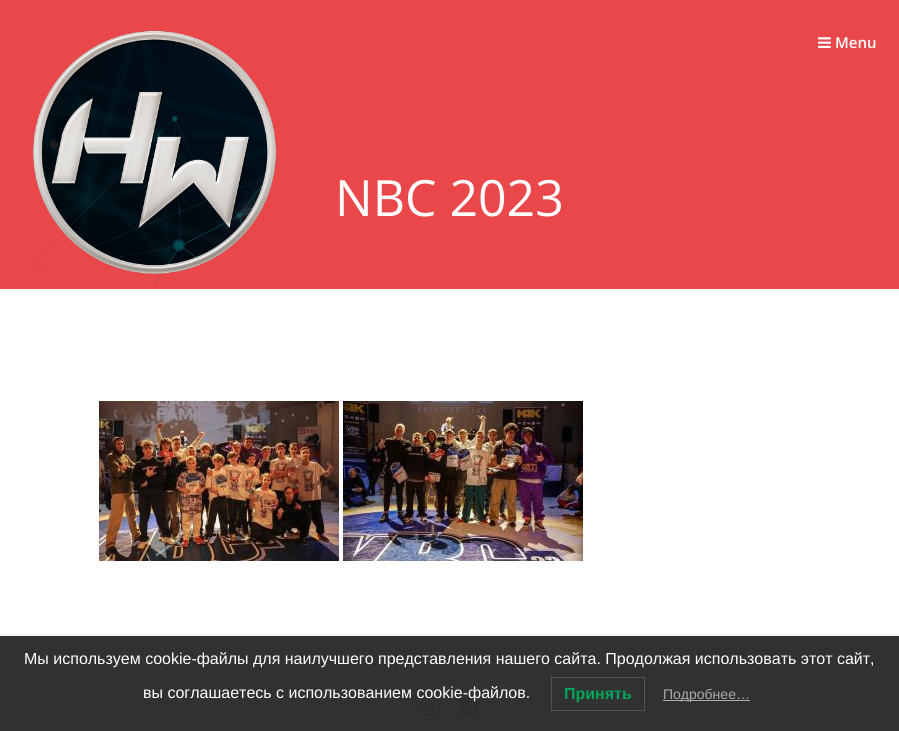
#include <cairo/cairo.h>
#include <math.h>
#include <stddef.h>


static void rounded_rect(cairo_t *cr, double x, double y, double w, double h, double r) {
  cairo_new_sub_path(cr);
  cairo_arc(cr, x + w - r, y + h - r, r, 0, M_PI / 2);
  cairo_arc(cr, x + r, y + h - r, r, M_PI / 2, M_PI);
  cairo_arc(cr, x + r, y + r, r, M_PI, 1.5 * M_PI);
  cairo_arc(cr, x + w - r, y + r, r, 1.5 * M_PI, 2 * M_PI);
  cairo_close_path(cr);
}

static void draw_shadow(cairo_t *cr, double x, double y, double w, double h, double r, double blur, double alpha) {
  cairo_push_group_with_content(cr, CAIRO_CONTENT_ALPHA);
  cairo_set_operator(cr, CAIRO_OPERATOR_SOURCE);
  for (int i = 15; i >= -15 && fmin(w, h) + blur * i / 3 > 0; i -= 2) {
    double e = blur * i / 6;
    cairo_set_source_rgba(cr, 0, 0, 0, alpha * erfc((i - 1) / 8.5) / 2);
    rounded_rect(cr, x - e, y - e, w + 2 * e, h + 2 * e, fmax(0, fmin(r + e + blur * .6, fmin(w, h) / 2 + e)));
    cairo_fill(cr);
  }
  cairo_pattern_t *soft = cairo_pop_group(cr);
  cairo_mask(cr, soft);
  cairo_pattern_destroy(soft);
}

static void draw_image(cairo_t *cr, const char *path, double x, double y, double w, double h) {
  cairo_surface_t *image = cairo_image_surface_create_from_png(path);
  cairo_save(cr);
  cairo_set_source_surface(cr, image, x, y);
  cairo_rectangle(cr, x, y, w, h);
  cairo_fill(cr);
  cairo_restore(cr);
  cairo_surface_destroy(image);
}

static void draw(cairo_t *cr) {
  cairo_set_source_rgb(cr, 1, 1, 1);
  cairo_paint(cr);
  cairo_set_source_rgb(cr, 49 / 255.0, 49 / 255.0, 49 / 255.0);
  cairo_rectangle(cr, 0, 637, 899, 94);
  cairo_fill(cr);
  cairo_set_source_rgb(cr, 234 / 255.0, 71 / 255.0, 75 / 255.0);
  cairo_rectangle(cr, 0, 0, 899, 289);
  cairo_fill(cr);
  draw_image(cr, "images/1.png", 30, 20, 250, 264);
  draw_image(cr, "images/2.png", 818, 37, 13, 11);
  draw_image(cr, "images/3.png", 99, 401, 240, 160);
  draw_image(cr, "images/4.png", 343, 401, 240, 160);
  draw_image(cr, "images/5.png", 421, 697, 20, 20);
  draw_image(cr, "images/6.png", 459, 697, 20, 20);
  cairo_save(cr);
  cairo_rectangle(cr, 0, 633, 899, 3);
  cairo_clip(cr);
  cairo_set_source_rgb(cr, 0, 0, 0);
  draw_shadow(cr, 0, 636, 899, 95, 0, 4, 0.1);
  cairo_restore(cr);
  cairo_set_source_rgb(cr, 43 / 255.0, 43 / 255.0, 43 / 255.0);
  cairo_rectangle(cr, 0, 636, 899, 1);
  cairo_fill(cr);
  cairo_rectangle(cr, 551.5, 677.5, 93, 33);
  cairo_set_source_rgb(cr, 85 / 255.0, 85 / 255.0, 85 / 255.0);
  cairo_set_line_width(cr, 1);
  cairo_stroke(cr);
  cairo_set_source_rgb(cr, 170 / 255.0, 170 / 255.0, 170 / 255.0);
  cairo_rectangle(cr, 663, 700, 87, 1);
  cairo_fill(cr);
  cairo_select_font_face(cr, "Open Sans SemiBold", CAIRO_FONT_SLANT_NORMAL, CAIRO_FONT_WEIGHT_NORMAL);
  cairo_set_font_size(cr, 15);
  cairo_set_source_rgb(cr, 1, 1, 1);
  cairo_move_to(cr, 835, 48);
  cairo_show_text(cr, "Menu");
  cairo_select_font_face(cr, "Open Sans", CAIRO_FONT_SLANT_NORMAL, CAIRO_FONT_WEIGHT_NORMAL);
  cairo_set_font_size(cr, 50);
  cairo_move_to(cr, 335, 216);
  cairo_show_text(cr, "NBC 2023");
  cairo_select_font_face(cr, "Liberation Sans", CAIRO_FONT_SLANT_NORMAL, CAIRO_FONT_WEIGHT_NORMAL);
  cairo_set_font_size(cr, 16);
  cairo_move_to(cr, 24, 664);
  cairo_show_text(cr, "Мы используем cookie-файлы для наилучшего представления нашего сайта. Продолжая использовать этот сайт,");
  cairo_move_to(cr, 143, 698);
  cairo_show_text(cr, "вы соглашаетесь с использованием cookie-файлов.");
  cairo_select_font_face(cr, "Liberation Sans", CAIRO_FONT_SLANT_NORMAL, CAIRO_FONT_WEIGHT_BOLD);
  cairo_set_source_rgb(cr, 0, 166 / 255.0, 90 / 255.0);
  cairo_move_to(cr, 564, 699);
  cairo_show_text(cr, "Принять");
  cairo_select_font_face(cr, "Liberation Sans", CAIRO_FONT_SLANT_NORMAL, CAIRO_FONT_WEIGHT_NORMAL);
  cairo_set_font_size(cr, 14);
  cairo_set_source_rgb(cr, 170 / 255.0, 170 / 255.0, 170 / 255.0);
  cairo_move_to(cr, 663, 699);
  cairo_show_text(cr, "Подробнее…");
}

int main(void) {
  cairo_surface_t *surface = cairo_image_surface_create(CAIRO_FORMAT_RGB24, 899, 731);
  cairo_t *cr = cairo_create(surface);
  cairo_font_options_t *options = cairo_font_options_create();
  cairo_font_options_set_hint_metrics(options, CAIRO_HINT_METRICS_OFF);
  cairo_font_options_set_hint_style(options, CAIRO_HINT_STYLE_NONE);
  cairo_set_font_options(cr, options);
  cairo_set_miter_limit(cr, 4);
  draw(cr);
  cairo_surface_write_to_png(surface, "out.png");
  cairo_font_options_destroy(options);
  cairo_destroy(cr);
  cairo_surface_destroy(surface);
  return 0;
}
